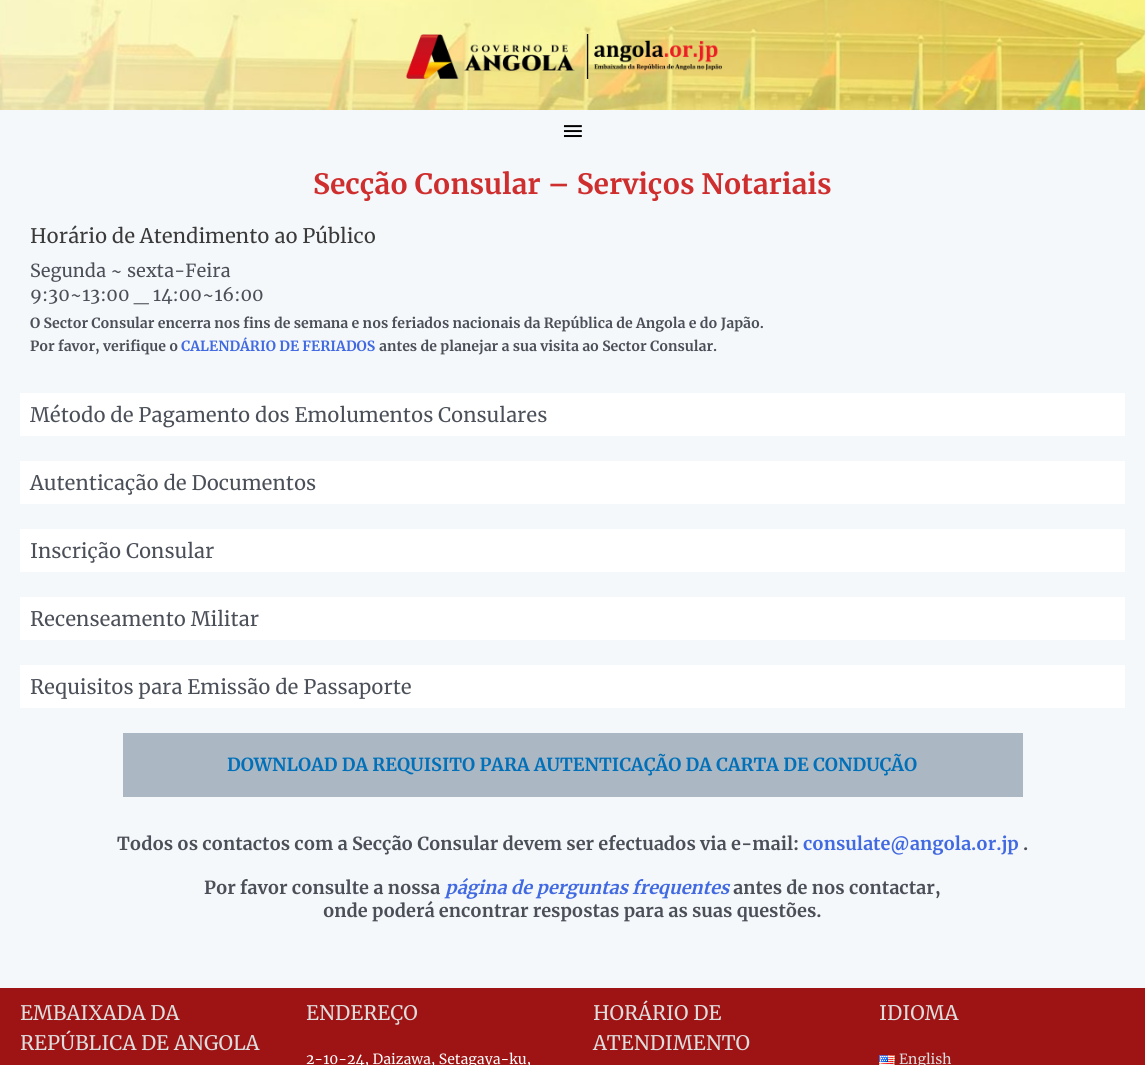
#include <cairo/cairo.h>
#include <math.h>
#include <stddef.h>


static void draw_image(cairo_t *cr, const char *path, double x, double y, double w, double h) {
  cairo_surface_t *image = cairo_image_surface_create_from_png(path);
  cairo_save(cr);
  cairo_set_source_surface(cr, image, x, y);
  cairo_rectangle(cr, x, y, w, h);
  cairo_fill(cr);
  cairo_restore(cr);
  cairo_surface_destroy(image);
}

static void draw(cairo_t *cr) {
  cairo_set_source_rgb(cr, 245 / 255.0, 248 / 255.0, 250 / 255.0);
  cairo_paint(cr);
  draw_image(cr, "images/1.png", 0, 0, 1145, 110);
  draw_image(cr, "images/2.png", 405, 34, 317, 45);
  draw_image(cr, "images/3.png", 563, 125, 19, 13);
  cairo_set_source_rgb(cr, 1, 1, 1);
  cairo_rectangle(cr, 20, 393, 1105, 43);
  cairo_fill(cr);
  cairo_rectangle(cr, 20, 461, 1105, 43);
  cairo_fill(cr);
  cairo_rectangle(cr, 20, 529, 1105, 43);
  cairo_fill(cr);
  cairo_rectangle(cr, 20, 597, 1105, 43);
  cairo_fill(cr);
  cairo_rectangle(cr, 20, 665, 1105, 43);
  cairo_fill(cr);
  cairo_set_source_rgb(cr, 171 / 255.0, 184 / 255.0, 195 / 255.0);
  cairo_rectangle(cr, 123, 733, 900, 64);
  cairo_fill(cr);
  cairo_set_source_rgb(cr, 158 / 255.0, 20 / 255.0, 20 / 255.0);
  cairo_rectangle(cr, 0, 988, 1145, 77);
  cairo_fill(cr);
  draw_image(cr, "images/4.png", 879, 1055, 16, 10);
  cairo_select_font_face(cr, "Merriweather", CAIRO_FONT_SLANT_NORMAL, CAIRO_FONT_WEIGHT_BOLD);
  cairo_set_font_size(cr, 28);
  cairo_set_source_rgb(cr, 207 / 255.0, 46 / 255.0, 46 / 255.0);
  cairo_move_to(cr, 313, 194);
  cairo_show_text(cr, "Secção Consular – Serviços Notariais");
  cairo_select_font_face(cr, "Merriweather", CAIRO_FONT_SLANT_NORMAL, CAIRO_FONT_WEIGHT_NORMAL);
  cairo_set_font_size(cr, 20);
  cairo_set_source_rgb(cr, 58 / 255.0, 58 / 255.0, 58 / 255.0);
  cairo_move_to(cr, 30, 243);
  cairo_show_text(cr, "Horário de Atendimento ao Público");
  cairo_set_font_size(cr, 18);
  cairo_set_source_rgb(cr, 75 / 255.0, 79 / 255.0, 88 / 255.0);
  cairo_move_to(cr, 30, 277);
  cairo_show_text(cr, "Segunda ~ sexta-Feira");
  cairo_move_to(cr, 30, 301);
  cairo_show_text(cr, "9:30~13:00 _ 14:00~16:00");
  cairo_select_font_face(cr, "Merriweather", CAIRO_FONT_SLANT_NORMAL, CAIRO_FONT_WEIGHT_BOLD);
  cairo_set_font_size(cr, 14);
  cairo_move_to(cr, 30, 328);
  cairo_show_text(cr, "O Sector Consular encerra nos fins de semana e nos feriados nacionais da República de Angola e do Japão.");
  cairo_move_to(cr, 30, 351);
  cairo_show_text(cr, "Por favor, verifique o");
  cairo_set_source_rgb(cr, 65 / 255.0, 105 / 255.0, 225 / 255.0);
  cairo_move_to(cr, 181, 351);
  cairo_show_text(cr, "CALENDÁRIO DE FERIADOS");
  cairo_set_source_rgb(cr, 75 / 255.0, 79 / 255.0, 88 / 255.0);
  cairo_move_to(cr, 379, 351);
  cairo_show_text(cr, "antes de planejar a sua visita ao Sector Consular.");
  cairo_select_font_face(cr, "Merriweather", CAIRO_FONT_SLANT_NORMAL, CAIRO_FONT_WEIGHT_NORMAL);
  cairo_set_font_size(cr, 20);
  cairo_move_to(cr, 30, 422);
  cairo_show_text(cr, "Método de Pagamento dos Emolumentos Consulares");
  cairo_move_to(cr, 30, 490);
  cairo_show_text(cr, "Autenticação de Documentos");
  cairo_move_to(cr, 30, 558);
  cairo_show_text(cr, "Inscrição Consular");
  cairo_move_to(cr, 30, 626);
  cairo_show_text(cr, "Recenseamento Militar");
  cairo_move_to(cr, 30, 694);
  cairo_show_text(cr, "Requisitos para Emissão de Passaporte");
  cairo_select_font_face(cr, "Merriweather", CAIRO_FONT_SLANT_NORMAL, CAIRO_FONT_WEIGHT_BOLD);
  cairo_set_font_size(cr, 18);
  cairo_set_source_rgb(cr, 1 / 255.0, 112 / 255.0, 185 / 255.0);
  cairo_move_to(cr, 227, 771);
  cairo_show_text(cr, "DOWNLOAD DA REQUISITO PARA AUTENTICAÇÃO DA CARTA DE CONDUÇÃO");
  cairo_set_source_rgb(cr, 75 / 255.0, 79 / 255.0, 88 / 255.0);
  cairo_move_to(cr, 117, 850);
  cairo_show_text(cr, "Todos os contactos com a Secção Consular devem ser efectuados via e-mail:");
  cairo_set_source_rgb(cr, 65 / 255.0, 105 / 255.0, 225 / 255.0);
  cairo_move_to(cr, 803, 850);
  cairo_show_text(cr, "consulate@angola.or.jp");
  cairo_set_source_rgb(cr, 75 / 255.0, 79 / 255.0, 88 / 255.0);
  cairo_move_to(cr, 1023, 850);
  cairo_show_text(cr, ".");
  cairo_move_to(cr, 204, 894);
  cairo_show_text(cr, "Por favor consulte a nossa");
  cairo_select_font_face(cr, "Merriweather", CAIRO_FONT_SLANT_ITALIC, CAIRO_FONT_WEIGHT_BOLD);
  cairo_set_source_rgb(cr, 65 / 255.0, 105 / 255.0, 225 / 255.0);
  cairo_move_to(cr, 445, 894);
  cairo_show_text(cr, "página de perguntas frequentes");
  cairo_select_font_face(cr, "Merriweather", CAIRO_FONT_SLANT_NORMAL, CAIRO_FONT_WEIGHT_BOLD);
  cairo_set_source_rgb(cr, 75 / 255.0, 79 / 255.0, 88 / 255.0);
  cairo_move_to(cr, 733, 894);
  cairo_show_text(cr, "antes de nos contactar,");
  cairo_move_to(cr, 323, 917);
  cairo_show_text(cr, "onde poderá encontrar respostas para as suas questões.");
  cairo_select_font_face(cr, "Merriweather", CAIRO_FONT_SLANT_NORMAL, CAIRO_FONT_WEIGHT_NORMAL);
  cairo_set_font_size(cr, 20);
  cairo_set_source_rgb(cr, 221 / 255.0, 221 / 255.0, 221 / 255.0);
  cairo_move_to(cr, 20, 1020);
  cairo_show_text(cr, "EMBAIXADA DA");
  cairo_move_to(cr, 20, 1050);
  cairo_show_text(cr, "REPÚBLICA DE ANGOLA");
  cairo_move_to(cr, 306, 1020);
  cairo_show_text(cr, "ENDEREÇO");
  cairo_set_font_size(cr, 14);
  cairo_set_source_rgb(cr, 1, 1, 1);
  cairo_move_to(cr, 306, 1064);
  cairo_show_text(cr, "2-10-24, Daizawa, Setagaya-ku,");
  cairo_set_font_size(cr, 20);
  cairo_set_source_rgb(cr, 221 / 255.0, 221 / 255.0, 221 / 255.0);
  cairo_move_to(cr, 593, 1020);
  cairo_show_text(cr, "HORÁRIO DE");
  cairo_move_to(cr, 593, 1050);
  cairo_show_text(cr, "ATENDIMENTO");
  cairo_move_to(cr, 879, 1020);
  cairo_show_text(cr, "IDIOMA");
  cairo_set_font_size(cr, 14);
  cairo_move_to(cr, 899, 1064);
  cairo_show_text(cr, "English");
}

int main(void) {
  cairo_surface_t *surface = cairo_image_surface_create(CAIRO_FORMAT_RGB24, 1145, 1065);
  cairo_t *cr = cairo_create(surface);
  cairo_font_options_t *options = cairo_font_options_create();
  cairo_font_options_set_hint_metrics(options, CAIRO_HINT_METRICS_OFF);
  cairo_font_options_set_hint_style(options, CAIRO_HINT_STYLE_NONE);
  cairo_set_font_options(cr, options);
  cairo_set_miter_limit(cr, 4);
  draw(cr);
  cairo_surface_write_to_png(surface, "out.png");
  cairo_font_options_destroy(options);
  cairo_destroy(cr);
  cairo_surface_destroy(surface);
  return 0;
}
